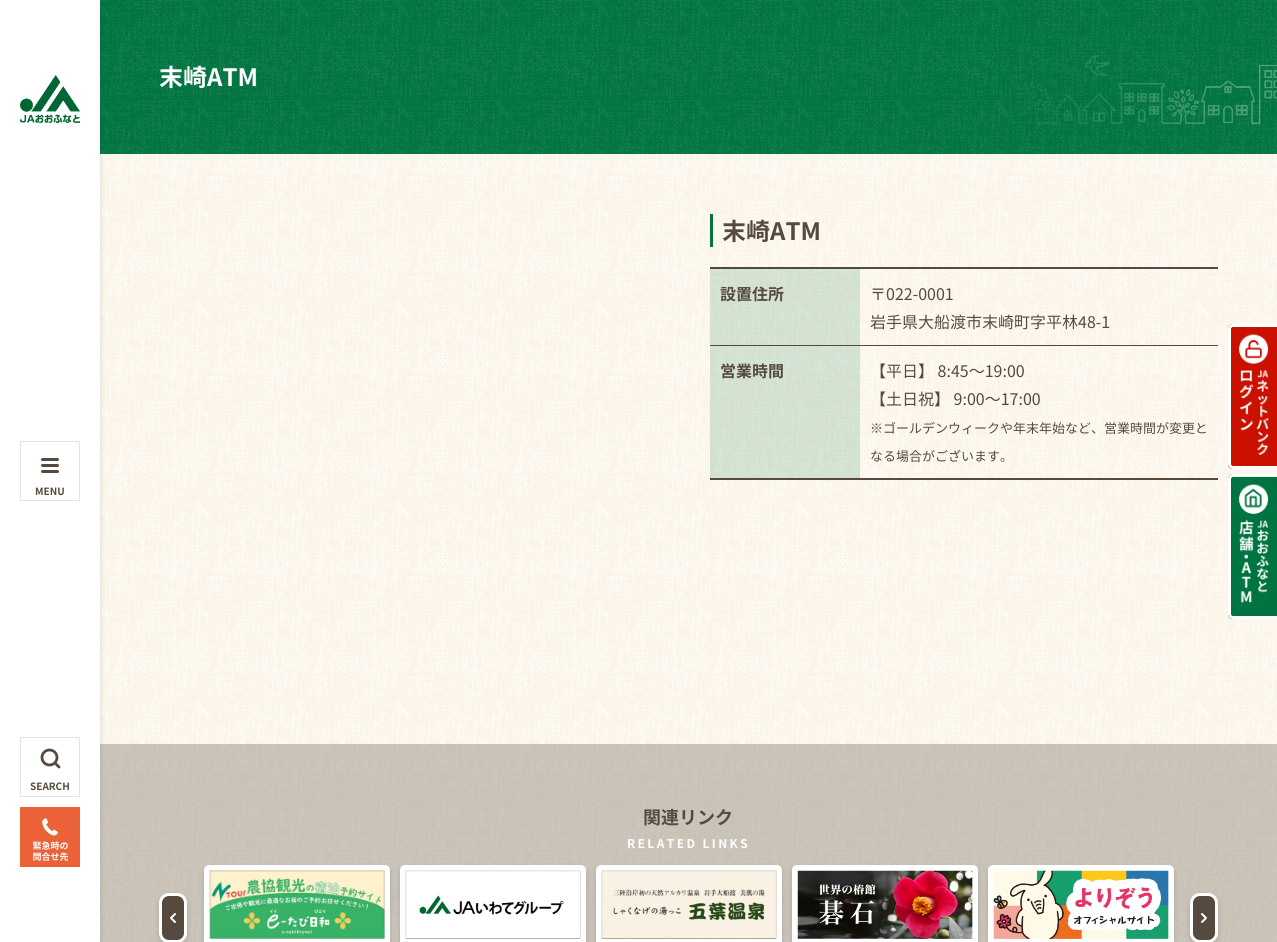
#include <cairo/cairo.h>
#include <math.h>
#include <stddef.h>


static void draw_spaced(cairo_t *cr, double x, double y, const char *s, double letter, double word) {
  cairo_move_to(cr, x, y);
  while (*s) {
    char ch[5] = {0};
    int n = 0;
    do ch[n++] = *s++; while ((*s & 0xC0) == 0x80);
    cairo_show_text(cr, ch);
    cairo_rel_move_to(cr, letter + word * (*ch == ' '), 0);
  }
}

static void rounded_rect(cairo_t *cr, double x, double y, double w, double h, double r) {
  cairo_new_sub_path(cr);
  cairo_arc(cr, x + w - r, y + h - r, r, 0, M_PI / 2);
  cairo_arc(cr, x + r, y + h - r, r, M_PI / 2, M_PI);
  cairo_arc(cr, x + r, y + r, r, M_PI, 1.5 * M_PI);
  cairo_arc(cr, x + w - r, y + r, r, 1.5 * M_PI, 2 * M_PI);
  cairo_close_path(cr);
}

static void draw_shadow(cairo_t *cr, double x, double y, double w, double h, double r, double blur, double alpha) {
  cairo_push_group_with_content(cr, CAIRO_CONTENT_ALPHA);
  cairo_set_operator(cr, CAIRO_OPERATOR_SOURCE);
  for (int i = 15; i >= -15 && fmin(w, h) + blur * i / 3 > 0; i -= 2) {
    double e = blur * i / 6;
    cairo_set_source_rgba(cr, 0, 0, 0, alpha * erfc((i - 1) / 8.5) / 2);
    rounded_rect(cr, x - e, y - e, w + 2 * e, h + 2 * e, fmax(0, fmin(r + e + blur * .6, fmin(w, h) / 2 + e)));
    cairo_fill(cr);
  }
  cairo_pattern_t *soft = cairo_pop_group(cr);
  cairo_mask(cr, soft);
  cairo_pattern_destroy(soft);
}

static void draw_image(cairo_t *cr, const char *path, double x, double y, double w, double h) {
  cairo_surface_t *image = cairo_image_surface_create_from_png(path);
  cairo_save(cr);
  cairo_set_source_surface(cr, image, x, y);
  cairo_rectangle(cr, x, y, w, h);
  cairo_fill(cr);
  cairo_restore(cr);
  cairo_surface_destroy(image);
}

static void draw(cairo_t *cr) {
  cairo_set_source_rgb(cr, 1, 1, 1);
  cairo_paint(cr);
  draw_image(cr, "images/1.png", 100, 154, 1177, 788);
  draw_image(cr, "images/4.png", 100, 0, 1177, 154);
  cairo_set_source_rgba(cr, 86 / 255.0, 74 / 255.0, 63 / 255.0, 0.3);
  cairo_rectangle(cr, 100, 744, 1177, 198);
  cairo_fill(cr);
  cairo_set_source_rgb(cr, 29 / 255.0, 27 / 255.0, 34 / 255.0);
  draw_shadow(cr, 0, 3, 100, 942, 0, 3, 0.16);
  cairo_set_source_rgb(cr, 1, 1, 1);
  cairo_rectangle(cr, 0, 0, 100, 942);
  cairo_fill(cr);
  draw_image(cr, "images/2.png", 20, 75, 60, 48);
  cairo_rectangle(cr, 20.5, 441.5, 59, 59);
  cairo_set_source_rgb(cr, 230 / 255.0, 228 / 255.0, 226 / 255.0);
  cairo_set_line_width(cr, 1);
  cairo_stroke(cr);
  cairo_set_source_rgb(cr, 86 / 255.0, 74 / 255.0, 63 / 255.0);
  rounded_rect(cr, 41, 458, 18, 3, 1.5);
  cairo_fill(cr);
  rounded_rect(cr, 41, 464, 18, 3, 1.5);
  cairo_fill(cr);
  rounded_rect(cr, 41, 470, 18, 3, 1.5);
  cairo_fill(cr);
  cairo_rectangle(cr, 20.5, 737.5, 59, 59);
  cairo_set_source_rgb(cr, 230 / 255.0, 228 / 255.0, 226 / 255.0);
  cairo_stroke(cr);
  cairo_arc(cr, 49.5, 757.5, 7.5, 0, 2 * M_PI);
  cairo_set_source_rgb(cr, 86 / 255.0, 74 / 255.0, 63 / 255.0);
  cairo_set_line_width(cr, 2.8);
  cairo_stroke(cr);
  cairo_new_path(cr);
  cairo_move_to(cr, 59, 767);
  cairo_line_to(cr, 55, 763);
  cairo_set_line_cap(cr, CAIRO_LINE_CAP_ROUND);
  cairo_set_line_join(cr, CAIRO_LINE_JOIN_ROUND);
  cairo_stroke(cr);
  draw_image(cr, "images/3.png", 20, 807, 60, 60);
  draw_image(cr, "images/5.png", 988, 55, 289, 69);
  cairo_set_source_rgb(cr, 0, 116 / 255.0, 64 / 255.0);
  cairo_rectangle(cr, 710, 214, 3, 33);
  cairo_fill(cr);
  cairo_set_source_rgb(cr, 86 / 255.0, 74 / 255.0, 63 / 255.0);
  cairo_rectangle(cr, 710, 267, 508, 2);
  cairo_fill(cr);
  cairo_rectangle(cr, 710, 478, 508, 2);
  cairo_fill(cr);
  cairo_set_source_rgba(cr, 0, 116 / 255.0, 64 / 255.0, 0.16);
  cairo_rectangle(cr, 710, 269, 150, 76);
  cairo_fill(cr);
  cairo_set_source_rgb(cr, 86 / 255.0, 74 / 255.0, 63 / 255.0);
  cairo_rectangle(cr, 710, 345, 508, 1);
  cairo_fill(cr);
  cairo_set_source_rgba(cr, 0, 116 / 255.0, 64 / 255.0, 0.16);
  cairo_rectangle(cr, 710, 346, 150, 132);
  cairo_fill(cr);
  cairo_set_source_rgb(cr, 202 / 255.0, 17 / 255.0, 0);
  cairo_new_path(cr);
  cairo_move_to(cr, 1233, 324);
  cairo_line_to(cr, 1277, 324);
  cairo_line_to(cr, 1277, 469);
  cairo_line_to(cr, 1233, 469);
  cairo_curve_to(cr, 1230, 469, 1228, 467, 1228, 464);
  cairo_line_to(cr, 1228, 329);
  cairo_curve_to(cr, 1228, 326, 1230, 324, 1233, 324);
  cairo_close_path(cr);
  cairo_fill(cr);
  cairo_set_source_rgb(cr, 1, 1, 1);
  cairo_set_fill_rule(cr, CAIRO_FILL_RULE_EVEN_ODD);
  cairo_new_path(cr);
  cairo_move_to(cr, 1233, 324);
  cairo_line_to(cr, 1277, 324);
  cairo_line_to(cr, 1277, 469);
  cairo_line_to(cr, 1233, 469);
  cairo_curve_to(cr, 1230, 469, 1228, 466, 1228, 464);
  cairo_line_to(cr, 1228, 329);
  cairo_curve_to(cr, 1228, 326, 1230, 324, 1233, 324);
  cairo_close_path(cr);
  cairo_move_to(cr, 1233, 327);
  cairo_line_to(cr, 1277, 327);
  cairo_line_to(cr, 1277, 466);
  cairo_line_to(cr, 1233, 466);
  cairo_curve_to(cr, 1232, 466, 1231, 465, 1231, 464);
  cairo_line_to(cr, 1231, 329);
  cairo_curve_to(cr, 1231, 328, 1232, 327, 1233, 327);
  cairo_close_path(cr);
  cairo_fill(cr);
  draw_image(cr, "images/6.png", 1239, 334, 30, 121);
  cairo_set_source_rgb(cr, 0, 116 / 255.0, 64 / 255.0);
  cairo_new_path(cr);
  cairo_move_to(cr, 1233, 474);
  cairo_line_to(cr, 1277, 474);
  cairo_line_to(cr, 1277, 619);
  cairo_line_to(cr, 1233, 619);
  cairo_curve_to(cr, 1230, 619, 1228, 617, 1228, 614);
  cairo_line_to(cr, 1228, 479);
  cairo_curve_to(cr, 1228, 476, 1230, 474, 1233, 474);
  cairo_close_path(cr);
  cairo_fill(cr);
  cairo_set_source_rgb(cr, 1, 1, 1);
  cairo_new_path(cr);
  cairo_move_to(cr, 1233, 474);
  cairo_line_to(cr, 1277, 474);
  cairo_line_to(cr, 1277, 619);
  cairo_line_to(cr, 1233, 619);
  cairo_curve_to(cr, 1230, 619, 1228, 616, 1228, 614);
  cairo_line_to(cr, 1228, 479);
  cairo_curve_to(cr, 1228, 476, 1230, 474, 1233, 474);
  cairo_close_path(cr);
  cairo_move_to(cr, 1233, 477);
  cairo_line_to(cr, 1277, 477);
  cairo_line_to(cr, 1277, 616);
  cairo_line_to(cr, 1233, 616);
  cairo_curve_to(cr, 1232, 616, 1231, 615, 1231, 614);
  cairo_line_to(cr, 1231, 479);
  cairo_curve_to(cr, 1231, 478, 1232, 477, 1233, 477);
  cairo_close_path(cr);
  cairo_fill(cr);
  draw_image(cr, "images/7.png", 1239, 484, 30, 119);
  cairo_set_source_rgb(cr, 29 / 255.0, 27 / 255.0, 34 / 255.0);
  draw_shadow(cr, 159, 896, 28, 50, 10, 3, 0.16);
  cairo_set_source_rgb(cr, 86 / 255.0, 74 / 255.0, 63 / 255.0);
  rounded_rect(cr, 160.5, 894.5, 25, 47, 8.5);
  cairo_fill_preserve(cr);
  cairo_set_source_rgb(cr, 1, 1, 1);
  cairo_set_line_width(cr, 3);
  cairo_set_line_cap(cr, CAIRO_LINE_CAP_BUTT);
  cairo_set_line_join(cr, CAIRO_LINE_JOIN_MITER);
  cairo_stroke(cr);
  cairo_new_path(cr);
  cairo_move_to(cr, 175, 922);
  cairo_line_to(cr, 171, 918);
  cairo_line_to(cr, 175, 914);
  cairo_set_line_width(cr, 2);
  cairo_set_line_cap(cr, CAIRO_LINE_CAP_ROUND);
  cairo_set_line_join(cr, CAIRO_LINE_JOIN_ROUND);
  cairo_stroke(cr);
  cairo_set_source_rgb(cr, 29 / 255.0, 27 / 255.0, 34 / 255.0);
  draw_shadow(cr, 204, 868, 186, 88, 5, 3, 0.16);
  cairo_set_source_rgb(cr, 1, 1, 1);
  rounded_rect(cr, 205, 866, 184, 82, 4);
  cairo_fill_preserve(cr);
  cairo_set_line_cap(cr, CAIRO_LINE_CAP_BUTT);
  cairo_set_line_join(cr, CAIRO_LINE_JOIN_MITER);
  cairo_stroke(cr);
  draw_image(cr, "images/8.png", 209, 870, 176, 69);
  cairo_set_source_rgb(cr, 29 / 255.0, 27 / 255.0, 34 / 255.0);
  draw_shadow(cr, 400, 868, 186, 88, 5, 3, 0.16);
  cairo_set_source_rgb(cr, 1, 1, 1);
  rounded_rect(cr, 401, 866, 184, 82, 4);
  cairo_fill_preserve(cr);
  cairo_stroke(cr);
  draw_image(cr, "images/9.png", 405, 870, 176, 69);
  cairo_set_source_rgb(cr, 29 / 255.0, 27 / 255.0, 34 / 255.0);
  draw_shadow(cr, 596, 868, 186, 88, 5, 3, 0.16);
  cairo_set_source_rgb(cr, 1, 1, 1);
  rounded_rect(cr, 597, 866, 184, 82, 4);
  cairo_fill_preserve(cr);
  cairo_stroke(cr);
  draw_image(cr, "images/10.png", 601, 870, 176, 70);
  cairo_set_source_rgb(cr, 29 / 255.0, 27 / 255.0, 34 / 255.0);
  draw_shadow(cr, 792, 868, 186, 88, 5, 3, 0.16);
  cairo_set_source_rgb(cr, 1, 1, 1);
  rounded_rect(cr, 793, 866, 184, 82, 4);
  cairo_fill_preserve(cr);
  cairo_stroke(cr);
  draw_image(cr, "images/11.png", 797, 870, 176, 70);
  cairo_set_source_rgb(cr, 29 / 255.0, 27 / 255.0, 34 / 255.0);
  draw_shadow(cr, 988, 868, 186, 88, 5, 3, 0.16);
  cairo_set_source_rgb(cr, 1, 1, 1);
  rounded_rect(cr, 989, 866, 184, 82, 4);
  cairo_fill_preserve(cr);
  cairo_stroke(cr);
  draw_image(cr, "images/12.png", 993, 870, 176, 69);
  cairo_set_source_rgb(cr, 29 / 255.0, 27 / 255.0, 34 / 255.0);
  draw_shadow(cr, 1190, 896, 28, 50, 10, 3, 0.16);
  cairo_set_source_rgb(cr, 86 / 255.0, 74 / 255.0, 63 / 255.0);
  rounded_rect(cr, 1191.5, 894.5, 25, 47, 8.5);
  cairo_fill_preserve(cr);
  cairo_set_source_rgb(cr, 1, 1, 1);
  cairo_set_line_width(cr, 3);
  cairo_stroke(cr);
  cairo_new_path(cr);
  cairo_move_to(cr, 1202, 922);
  cairo_line_to(cr, 1206, 918);
  cairo_line_to(cr, 1202, 914);
  cairo_set_line_width(cr, 2);
  cairo_set_line_cap(cr, CAIRO_LINE_CAP_ROUND);
  cairo_set_line_join(cr, CAIRO_LINE_JOIN_ROUND);
  cairo_stroke(cr);
  cairo_select_font_face(cr, "Noto Sans JP", CAIRO_FONT_SLANT_NORMAL, CAIRO_FONT_WEIGHT_BOLD);
  cairo_set_font_size(cr, 10);
  cairo_set_source_rgb(cr, 86 / 255.0, 74 / 255.0, 63 / 255.0);
  cairo_move_to(cr, 35, 495);
  cairo_show_text(cr, "MENU");
  cairo_move_to(cr, 30, 790);
  cairo_show_text(cr, "SEARCH");
  cairo_set_font_size(cr, 24);
  cairo_set_source_rgb(cr, 1, 1, 1);
  cairo_move_to(cr, 159, 86);
  cairo_show_text(cr, "末崎ATM");
  cairo_set_source_rgb(cr, 86 / 255.0, 74 / 255.0, 63 / 255.0);
  cairo_move_to(cr, 722, 240);
  cairo_show_text(cr, "末崎ATM");
  cairo_set_font_size(cr, 16);
  cairo_move_to(cr, 720, 300);
  cairo_show_text(cr, "設置住所");
  cairo_select_font_face(cr, "Noto Sans JP", CAIRO_FONT_SLANT_NORMAL, CAIRO_FONT_WEIGHT_NORMAL);
  cairo_move_to(cr, 870, 300);
  cairo_show_text(cr, "〒022-0001");
  cairo_move_to(cr, 870, 328);
  cairo_show_text(cr, "岩手県大船渡市末崎町字平林48-1");
  cairo_select_font_face(cr, "Noto Sans JP", CAIRO_FONT_SLANT_NORMAL, CAIRO_FONT_WEIGHT_BOLD);
  cairo_move_to(cr, 720, 377);
  cairo_show_text(cr, "営業時間");
  cairo_select_font_face(cr, "Noto Sans JP", CAIRO_FONT_SLANT_NORMAL, CAIRO_FONT_WEIGHT_NORMAL);
  cairo_move_to(cr, 870, 377);
  cairo_show_text(cr, "【平日】 8:45～19:00");
  cairo_move_to(cr, 870, 405);
  cairo_show_text(cr, "【土日祝】 9:00～17:00");
  cairo_set_font_size(cr, 13);
  cairo_move_to(cr, 870, 433);
  cairo_show_text(cr, "※ゴールデンウィークや年末年始など、営業時間が変更と");
  cairo_move_to(cr, 870, 461);
  cairo_show_text(cr, "なる場合がございます。");
  cairo_select_font_face(cr, "Noto Sans JP", CAIRO_FONT_SLANT_NORMAL, CAIRO_FONT_WEIGHT_BOLD);
  cairo_set_font_size(cr, 18);
  cairo_move_to(cr, 643, 824);
  cairo_show_text(cr, "関連リンク");
  cairo_set_font_size(cr, 12);
  cairo_set_source_rgb(cr, 1, 1, 1);
  draw_spaced(cr, 627, 848, "RELATED LINKS", 2.4, 0);
}

int main(void) {
  cairo_surface_t *surface = cairo_image_surface_create(CAIRO_FORMAT_RGB24, 1277, 942);
  cairo_t *cr = cairo_create(surface);
  cairo_font_options_t *options = cairo_font_options_create();
  cairo_font_options_set_hint_metrics(options, CAIRO_HINT_METRICS_OFF);
  cairo_font_options_set_hint_style(options, CAIRO_HINT_STYLE_NONE);
  cairo_set_font_options(cr, options);
  cairo_set_miter_limit(cr, 4);
  draw(cr);
  cairo_surface_write_to_png(surface, "out.png");
  cairo_font_options_destroy(options);
  cairo_destroy(cr);
  cairo_surface_destroy(surface);
  return 0;
}
